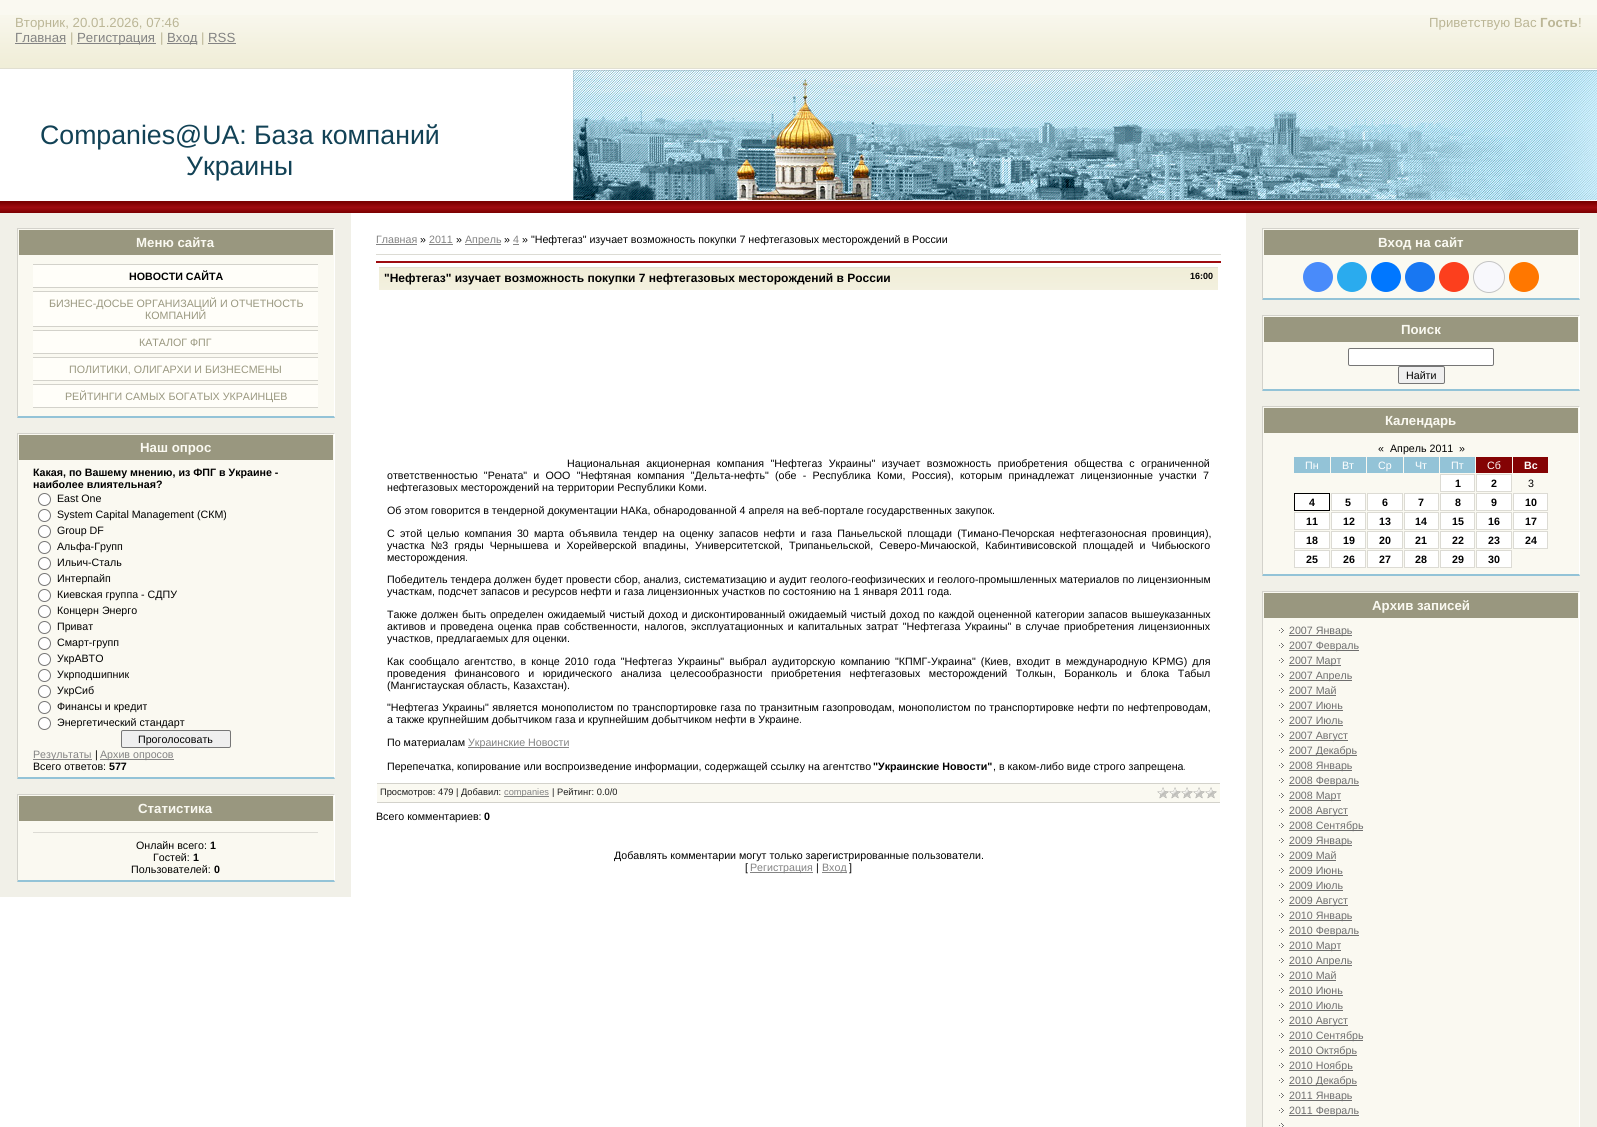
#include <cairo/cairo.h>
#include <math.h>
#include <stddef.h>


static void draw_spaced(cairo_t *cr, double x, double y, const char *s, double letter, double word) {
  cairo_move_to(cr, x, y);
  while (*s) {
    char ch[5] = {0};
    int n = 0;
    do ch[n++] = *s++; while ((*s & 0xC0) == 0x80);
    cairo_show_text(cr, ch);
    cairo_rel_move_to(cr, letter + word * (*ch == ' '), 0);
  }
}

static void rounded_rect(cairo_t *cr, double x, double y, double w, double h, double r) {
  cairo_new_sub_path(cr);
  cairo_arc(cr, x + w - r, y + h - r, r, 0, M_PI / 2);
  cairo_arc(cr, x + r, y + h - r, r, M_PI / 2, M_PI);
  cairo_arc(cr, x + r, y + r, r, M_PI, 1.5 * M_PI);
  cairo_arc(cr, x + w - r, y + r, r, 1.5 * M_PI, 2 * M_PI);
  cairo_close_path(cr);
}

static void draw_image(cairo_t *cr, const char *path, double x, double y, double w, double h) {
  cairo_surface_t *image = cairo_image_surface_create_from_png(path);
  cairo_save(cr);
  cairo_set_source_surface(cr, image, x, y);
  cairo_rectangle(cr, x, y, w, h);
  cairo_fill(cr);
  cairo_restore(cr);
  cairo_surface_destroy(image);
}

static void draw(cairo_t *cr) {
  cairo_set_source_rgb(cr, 1, 1, 1);
  cairo_paint(cr);
  cairo_set_source_rgb(cr, 250 / 255.0, 249 / 255.0, 241 / 255.0);
  cairo_rectangle(cr, 0, 0, 1597, 15);
  cairo_fill(cr);
  draw_image(cr, "images/1.png", 0, 15, 1597, 55);
  cairo_set_source_rgb(cr, 131 / 255.0, 131 / 255.0, 131 / 255.0);
  cairo_rectangle(cr, 15, 43, 51, 1);
  cairo_fill(cr);
  cairo_rectangle(cr, 77, 43, 79, 1);
  cairo_fill(cr);
  cairo_rectangle(cr, 167, 43, 30, 1);
  cairo_fill(cr);
  cairo_rectangle(cr, 208, 43, 28, 1);
  cairo_fill(cr);
  draw_image(cr, "images/2.png", 573, 70, 1024, 131);
  draw_image(cr, "images/3.png", 0, 201, 1597, 12);
  cairo_set_source_rgb(cr, 241 / 255.0, 240 / 255.0, 232 / 255.0);
  cairo_rectangle(cr, 0, 213, 351, 684);
  cairo_fill(cr);
  cairo_set_source_rgb(cr, 250 / 255.0, 249 / 255.0, 241 / 255.0);
  cairo_rectangle(cr, 18, 256, 316, 160);
  cairo_fill(cr);
  cairo_set_source_rgb(cr, 211 / 255.0, 210 / 255.0, 203 / 255.0);
  cairo_rectangle(cr, 17, 228, 318, 1);
  cairo_fill(cr);
  cairo_set_source_rgb(cr, 1, 1, 1);
  cairo_new_path(cr);
  cairo_move_to(cr, 335, 228);
  cairo_line_to(cr, 335, 418);
  cairo_line_to(cr, 334, 416);
  cairo_line_to(cr, 334, 229);
  cairo_close_path(cr);
  cairo_fill(cr);
  cairo_set_source_rgb(cr, 147 / 255.0, 195 / 255.0, 215 / 255.0);
  cairo_new_path(cr);
  cairo_move_to(cr, 335, 418);
  cairo_line_to(cr, 17, 418);
  cairo_line_to(cr, 18, 416);
  cairo_line_to(cr, 334, 416);
  cairo_close_path(cr);
  cairo_fill(cr);
  cairo_set_source_rgb(cr, 211 / 255.0, 210 / 255.0, 203 / 255.0);
  cairo_new_path(cr);
  cairo_move_to(cr, 17, 418);
  cairo_line_to(cr, 17, 228);
  cairo_line_to(cr, 18, 229);
  cairo_line_to(cr, 18, 416);
  cairo_close_path(cr);
  cairo_fill(cr);
  cairo_set_source_rgb(cr, 153 / 255.0, 151 / 255.0, 127 / 255.0);
  cairo_rectangle(cr, 18.5, 229.5, 315, 26);
  cairo_fill_preserve(cr);
  cairo_set_source_rgb(cr, 250 / 255.0, 249 / 255.0, 241 / 255.0);
  cairo_set_line_width(cr, 1);
  cairo_stroke(cr);
  cairo_set_source_rgb(cr, 1, 254 / 255.0, 249 / 255.0);
  cairo_rectangle(cr, 33, 265, 285, 22);
  cairo_fill(cr);
  cairo_set_source_rgb(cr, 211 / 255.0, 210 / 255.0, 203 / 255.0);
  cairo_rectangle(cr, 33, 264, 285, 1);
  cairo_fill(cr);
  cairo_rectangle(cr, 33, 287, 285, 1);
  cairo_fill(cr);
  cairo_set_source_rgb(cr, 1, 254 / 255.0, 249 / 255.0);
  cairo_rectangle(cr, 33, 292, 285, 34);
  cairo_fill(cr);
  cairo_set_source_rgb(cr, 211 / 255.0, 210 / 255.0, 203 / 255.0);
  cairo_rectangle(cr, 33, 291, 285, 1);
  cairo_fill(cr);
  cairo_rectangle(cr, 33, 326, 285, 1);
  cairo_fill(cr);
  cairo_set_source_rgb(cr, 1, 254 / 255.0, 249 / 255.0);
  cairo_rectangle(cr, 33, 331, 285, 22);
  cairo_fill(cr);
  cairo_set_source_rgb(cr, 211 / 255.0, 210 / 255.0, 203 / 255.0);
  cairo_rectangle(cr, 33, 330, 285, 1);
  cairo_fill(cr);
  cairo_rectangle(cr, 33, 353, 285, 1);
  cairo_fill(cr);
  cairo_set_source_rgb(cr, 1, 254 / 255.0, 249 / 255.0);
  cairo_rectangle(cr, 33, 358, 285, 22);
  cairo_fill(cr);
  cairo_set_source_rgb(cr, 211 / 255.0, 210 / 255.0, 203 / 255.0);
  cairo_rectangle(cr, 33, 357, 285, 1);
  cairo_fill(cr);
  cairo_rectangle(cr, 33, 380, 285, 1);
  cairo_fill(cr);
  cairo_set_source_rgb(cr, 1, 254 / 255.0, 249 / 255.0);
  cairo_rectangle(cr, 33, 385, 285, 22);
  cairo_fill(cr);
  cairo_set_source_rgb(cr, 211 / 255.0, 210 / 255.0, 203 / 255.0);
  cairo_rectangle(cr, 33, 384, 285, 1);
  cairo_fill(cr);
  cairo_rectangle(cr, 33, 407, 285, 1);
  cairo_fill(cr);
  cairo_set_source_rgb(cr, 250 / 255.0, 249 / 255.0, 241 / 255.0);
  cairo_rectangle(cr, 18, 461, 316, 316);
  cairo_fill(cr);
  cairo_set_source_rgb(cr, 211 / 255.0, 210 / 255.0, 203 / 255.0);
  cairo_rectangle(cr, 17, 433, 318, 1);
  cairo_fill(cr);
  cairo_set_source_rgb(cr, 1, 1, 1);
  cairo_new_path(cr);
  cairo_move_to(cr, 335, 433);
  cairo_line_to(cr, 335, 779);
  cairo_line_to(cr, 334, 777);
  cairo_line_to(cr, 334, 434);
  cairo_close_path(cr);
  cairo_fill(cr);
  cairo_set_source_rgb(cr, 147 / 255.0, 195 / 255.0, 215 / 255.0);
  cairo_new_path(cr);
  cairo_move_to(cr, 335, 779);
  cairo_line_to(cr, 17, 779);
  cairo_line_to(cr, 18, 777);
  cairo_line_to(cr, 334, 777);
  cairo_close_path(cr);
  cairo_fill(cr);
  cairo_set_source_rgb(cr, 211 / 255.0, 210 / 255.0, 203 / 255.0);
  cairo_new_path(cr);
  cairo_move_to(cr, 17, 779);
  cairo_line_to(cr, 17, 433);
  cairo_line_to(cr, 18, 434);
  cairo_line_to(cr, 18, 777);
  cairo_close_path(cr);
  cairo_fill(cr);
  cairo_set_source_rgb(cr, 153 / 255.0, 151 / 255.0, 127 / 255.0);
  cairo_rectangle(cr, 18.5, 434.5, 315, 26);
  cairo_fill_preserve(cr);
  cairo_set_source_rgb(cr, 250 / 255.0, 249 / 255.0, 241 / 255.0);
  cairo_stroke(cr);
  cairo_set_source_rgb(cr, 1, 1, 1);
  cairo_arc(cr, 44.5, 499.5, 6, 0, 2 * M_PI);
  cairo_fill_preserve(cr);
  cairo_set_source_rgb(cr, 118 / 255.0, 118 / 255.0, 118 / 255.0);
  cairo_stroke(cr);
  cairo_set_source_rgb(cr, 1, 1, 1);
  cairo_arc(cr, 44.5, 515.5, 6, 0, 2 * M_PI);
  cairo_fill_preserve(cr);
  cairo_set_source_rgb(cr, 118 / 255.0, 118 / 255.0, 118 / 255.0);
  cairo_stroke(cr);
  cairo_set_source_rgb(cr, 1, 1, 1);
  cairo_arc(cr, 44.5, 531.5, 6, 0, 2 * M_PI);
  cairo_fill_preserve(cr);
  cairo_set_source_rgb(cr, 118 / 255.0, 118 / 255.0, 118 / 255.0);
  cairo_stroke(cr);
  cairo_set_source_rgb(cr, 1, 1, 1);
  cairo_arc(cr, 44.5, 547.5, 6, 0, 2 * M_PI);
  cairo_fill_preserve(cr);
  cairo_set_source_rgb(cr, 118 / 255.0, 118 / 255.0, 118 / 255.0);
  cairo_stroke(cr);
  cairo_set_source_rgb(cr, 1, 1, 1);
  cairo_arc(cr, 44.5, 563.5, 6, 0, 2 * M_PI);
  cairo_fill_preserve(cr);
  cairo_set_source_rgb(cr, 118 / 255.0, 118 / 255.0, 118 / 255.0);
  cairo_stroke(cr);
  cairo_set_source_rgb(cr, 1, 1, 1);
  cairo_arc(cr, 44.5, 579.5, 6, 0, 2 * M_PI);
  cairo_fill_preserve(cr);
  cairo_set_source_rgb(cr, 118 / 255.0, 118 / 255.0, 118 / 255.0);
  cairo_stroke(cr);
  cairo_set_source_rgb(cr, 1, 1, 1);
  cairo_arc(cr, 44.5, 595.5, 6, 0, 2 * M_PI);
  cairo_fill_preserve(cr);
  cairo_set_source_rgb(cr, 118 / 255.0, 118 / 255.0, 118 / 255.0);
  cairo_stroke(cr);
  cairo_set_source_rgb(cr, 1, 1, 1);
  cairo_arc(cr, 44.5, 611.5, 6, 0, 2 * M_PI);
  cairo_fill_preserve(cr);
  cairo_set_source_rgb(cr, 118 / 255.0, 118 / 255.0, 118 / 255.0);
  cairo_stroke(cr);
  cairo_set_source_rgb(cr, 1, 1, 1);
  cairo_arc(cr, 44.5, 627.5, 6, 0, 2 * M_PI);
  cairo_fill_preserve(cr);
  cairo_set_source_rgb(cr, 118 / 255.0, 118 / 255.0, 118 / 255.0);
  cairo_stroke(cr);
  cairo_set_source_rgb(cr, 1, 1, 1);
  cairo_arc(cr, 44.5, 643.5, 6, 0, 2 * M_PI);
  cairo_fill_preserve(cr);
  cairo_set_source_rgb(cr, 118 / 255.0, 118 / 255.0, 118 / 255.0);
  cairo_stroke(cr);
  cairo_set_source_rgb(cr, 1, 1, 1);
  cairo_arc(cr, 44.5, 659.5, 6, 0, 2 * M_PI);
  cairo_fill_preserve(cr);
  cairo_set_source_rgb(cr, 118 / 255.0, 118 / 255.0, 118 / 255.0);
  cairo_stroke(cr);
  cairo_set_source_rgb(cr, 1, 1, 1);
  cairo_arc(cr, 44.5, 675.5, 6, 0, 2 * M_PI);
  cairo_fill_preserve(cr);
  cairo_set_source_rgb(cr, 118 / 255.0, 118 / 255.0, 118 / 255.0);
  cairo_stroke(cr);
  cairo_set_source_rgb(cr, 1, 1, 1);
  cairo_arc(cr, 44.5, 691.5, 6, 0, 2 * M_PI);
  cairo_fill_preserve(cr);
  cairo_set_source_rgb(cr, 118 / 255.0, 118 / 255.0, 118 / 255.0);
  cairo_stroke(cr);
  cairo_set_source_rgb(cr, 1, 1, 1);
  cairo_arc(cr, 44.5, 707.5, 6, 0, 2 * M_PI);
  cairo_fill_preserve(cr);
  cairo_set_source_rgb(cr, 118 / 255.0, 118 / 255.0, 118 / 255.0);
  cairo_stroke(cr);
  cairo_set_source_rgb(cr, 1, 1, 1);
  cairo_arc(cr, 44.5, 723.5, 6, 0, 2 * M_PI);
  cairo_fill_preserve(cr);
  cairo_set_source_rgb(cr, 118 / 255.0, 118 / 255.0, 118 / 255.0);
  cairo_stroke(cr);
  cairo_set_source_rgb(cr, 239 / 255.0, 239 / 255.0, 239 / 255.0);
  rounded_rect(cr, 121.5, 730.5, 109, 17, 1.5);
  cairo_fill_preserve(cr);
  cairo_set_source_rgb(cr, 118 / 255.0, 118 / 255.0, 118 / 255.0);
  cairo_stroke(cr);
  cairo_set_source_rgb(cr, 131 / 255.0, 131 / 255.0, 131 / 255.0);
  cairo_rectangle(cr, 33, 759, 59, 1);
  cairo_fill(cr);
  cairo_rectangle(cr, 100, 759, 74, 1);
  cairo_fill(cr);
  cairo_set_source_rgb(cr, 250 / 255.0, 249 / 255.0, 241 / 255.0);
  cairo_rectangle(cr, 18, 822, 316, 58);
  cairo_fill(cr);
  cairo_set_source_rgb(cr, 211 / 255.0, 210 / 255.0, 203 / 255.0);
  cairo_rectangle(cr, 17, 794, 318, 1);
  cairo_fill(cr);
  cairo_set_source_rgb(cr, 1, 1, 1);
  cairo_new_path(cr);
  cairo_move_to(cr, 335, 794);
  cairo_line_to(cr, 335, 882);
  cairo_line_to(cr, 334, 880);
  cairo_line_to(cr, 334, 795);
  cairo_close_path(cr);
  cairo_fill(cr);
  cairo_set_source_rgb(cr, 147 / 255.0, 195 / 255.0, 215 / 255.0);
  cairo_new_path(cr);
  cairo_move_to(cr, 335, 882);
  cairo_line_to(cr, 17, 882);
  cairo_line_to(cr, 18, 880);
  cairo_line_to(cr, 334, 880);
  cairo_close_path(cr);
  cairo_fill(cr);
  cairo_set_source_rgb(cr, 211 / 255.0, 210 / 255.0, 203 / 255.0);
  cairo_new_path(cr);
  cairo_move_to(cr, 17, 882);
  cairo_line_to(cr, 17, 794);
  cairo_line_to(cr, 18, 795);
  cairo_line_to(cr, 18, 880);
  cairo_close_path(cr);
  cairo_fill(cr);
  cairo_set_source_rgb(cr, 153 / 255.0, 151 / 255.0, 127 / 255.0);
  cairo_rectangle(cr, 18.5, 795.5, 315, 26);
  cairo_fill_preserve(cr);
  cairo_set_source_rgb(cr, 250 / 255.0, 249 / 255.0, 241 / 255.0);
  cairo_stroke(cr);
  cairo_set_source_rgb(cr, 220 / 255.0, 219 / 255.0, 212 / 255.0);
  cairo_rectangle(cr, 33, 832, 285, 1);
  cairo_fill(cr);
  cairo_set_source_rgb(cr, 131 / 255.0, 131 / 255.0, 131 / 255.0);
  cairo_rectangle(cr, 376, 244, 41, 1);
  cairo_fill(cr);
  cairo_rectangle(cr, 429, 244, 24, 1);
  cairo_fill(cr);
  cairo_rectangle(cr, 465, 244, 36, 1);
  cairo_fill(cr);
  cairo_rectangle(cr, 513, 244, 6, 1);
  cairo_fill(cr);
  cairo_set_source_rgb(cr, 220 / 255.0, 219 / 255.0, 212 / 255.0);
  cairo_rectangle(cr, 376, 254, 845, 1);
  cairo_fill(cr);
  cairo_set_source_rgb(cr, 158 / 255.0, 11 / 255.0, 15 / 255.0);
  cairo_rectangle(cr, 376, 261, 845, 2);
  cairo_fill(cr);
  draw_image(cr, "images/4.png", 379, 266, 839, 24);
  cairo_set_source_rgb(cr, 131 / 255.0, 131 / 255.0, 131 / 255.0);
  cairo_rectangle(cr, 468, 747, 101, 1);
  cairo_fill(cr);
  cairo_set_source_rgb(cr, 250 / 255.0, 249 / 255.0, 241 / 255.0);
  cairo_rectangle(cr, 377, 784, 843, 18);
  cairo_fill(cr);
  cairo_set_source_rgb(cr, 211 / 255.0, 210 / 255.0, 203 / 255.0);
  cairo_rectangle(cr, 377, 783, 843, 1);
  cairo_fill(cr);
  cairo_rectangle(cr, 377, 802, 843, 1);
  cairo_fill(cr);
  cairo_set_source_rgb(cr, 131 / 255.0, 131 / 255.0, 131 / 255.0);
  cairo_rectangle(cr, 504, 796, 45, 1);
  cairo_fill(cr);
  draw_image(cr, "images/5.png", 1157, 787, 60, 12);
  cairo_rectangle(cr, 750, 872, 63, 1);
  cairo_fill(cr);
  cairo_rectangle(cr, 822, 872, 25, 1);
  cairo_fill(cr);
  cairo_set_source_rgb(cr, 241 / 255.0, 240 / 255.0, 232 / 255.0);
  cairo_rectangle(cr, 1246, 213, 351, 914);
  cairo_fill(cr);
  cairo_set_source_rgb(cr, 250 / 255.0, 249 / 255.0, 241 / 255.0);
  cairo_rectangle(cr, 1263, 256, 316, 42);
  cairo_fill(cr);
  cairo_set_source_rgb(cr, 211 / 255.0, 210 / 255.0, 203 / 255.0);
  cairo_rectangle(cr, 1262, 228, 318, 1);
  cairo_fill(cr);
  cairo_set_source_rgb(cr, 1, 1, 1);
  cairo_new_path(cr);
  cairo_move_to(cr, 1580, 228);
  cairo_line_to(cr, 1580, 300);
  cairo_line_to(cr, 1579, 298);
  cairo_line_to(cr, 1579, 229);
  cairo_close_path(cr);
  cairo_fill(cr);
  cairo_set_source_rgb(cr, 147 / 255.0, 195 / 255.0, 215 / 255.0);
  cairo_new_path(cr);
  cairo_move_to(cr, 1580, 300);
  cairo_line_to(cr, 1262, 300);
  cairo_line_to(cr, 1263, 298);
  cairo_line_to(cr, 1579, 298);
  cairo_close_path(cr);
  cairo_fill(cr);
  cairo_set_source_rgb(cr, 211 / 255.0, 210 / 255.0, 203 / 255.0);
  cairo_new_path(cr);
  cairo_move_to(cr, 1262, 300);
  cairo_line_to(cr, 1262, 228);
  cairo_line_to(cr, 1263, 229);
  cairo_line_to(cr, 1263, 298);
  cairo_close_path(cr);
  cairo_fill(cr);
  cairo_set_source_rgb(cr, 153 / 255.0, 151 / 255.0, 127 / 255.0);
  cairo_rectangle(cr, 1263.5, 229.5, 315, 26);
  cairo_fill_preserve(cr);
  cairo_set_source_rgb(cr, 250 / 255.0, 249 / 255.0, 241 / 255.0);
  cairo_stroke(cr);
  cairo_set_source_rgb(cr, 73 / 255.0, 139 / 255.0, 250 / 255.0);
  cairo_arc(cr, 1318, 277, 15, 0, 2 * M_PI);
  cairo_fill(cr);
  cairo_set_source_rgb(cr, 42 / 255.0, 171 / 255.0, 238 / 255.0);
  cairo_arc(cr, 1352, 277, 15, 0, 2 * M_PI);
  cairo_fill(cr);
  cairo_set_source_rgb(cr, 0, 119 / 255.0, 1);
  cairo_arc(cr, 1386, 277, 15, 0, 2 * M_PI);
  cairo_fill(cr);
  cairo_set_source_rgb(cr, 24 / 255.0, 119 / 255.0, 242 / 255.0);
  cairo_arc(cr, 1420, 277, 15, 0, 2 * M_PI);
  cairo_fill(cr);
  cairo_set_source_rgb(cr, 252 / 255.0, 63 / 255.0, 29 / 255.0);
  cairo_arc(cr, 1454, 277, 15, 0, 2 * M_PI);
  cairo_fill(cr);
  cairo_set_source_rgb(cr, 248 / 255.0, 248 / 255.0, 252 / 255.0);
  cairo_arc(cr, 1489, 277, 15.5, 0, 2 * M_PI);
  cairo_fill_preserve(cr);
  cairo_set_source_rgb(cr, 196 / 255.0, 196 / 255.0, 196 / 255.0);
  cairo_stroke(cr);
  cairo_set_source_rgb(cr, 1, 119 / 255.0, 0);
  cairo_arc(cr, 1524, 277, 15, 0, 2 * M_PI);
  cairo_fill(cr);
  cairo_set_source_rgb(cr, 250 / 255.0, 249 / 255.0, 241 / 255.0);
  cairo_rectangle(cr, 1263, 343, 316, 46);
  cairo_fill(cr);
  cairo_set_source_rgb(cr, 211 / 255.0, 210 / 255.0, 203 / 255.0);
  cairo_rectangle(cr, 1262, 315, 318, 1);
  cairo_fill(cr);
  cairo_set_source_rgb(cr, 1, 1, 1);
  cairo_new_path(cr);
  cairo_move_to(cr, 1580, 315);
  cairo_line_to(cr, 1580, 391);
  cairo_line_to(cr, 1579, 389);
  cairo_line_to(cr, 1579, 316);
  cairo_close_path(cr);
  cairo_fill(cr);
  cairo_set_source_rgb(cr, 147 / 255.0, 195 / 255.0, 215 / 255.0);
  cairo_new_path(cr);
  cairo_move_to(cr, 1580, 391);
  cairo_line_to(cr, 1262, 391);
  cairo_line_to(cr, 1263, 389);
  cairo_line_to(cr, 1579, 389);
  cairo_close_path(cr);
  cairo_fill(cr);
  cairo_set_source_rgb(cr, 211 / 255.0, 210 / 255.0, 203 / 255.0);
  cairo_new_path(cr);
  cairo_move_to(cr, 1262, 391);
  cairo_line_to(cr, 1262, 315);
  cairo_line_to(cr, 1263, 316);
  cairo_line_to(cr, 1263, 389);
  cairo_close_path(cr);
  cairo_fill(cr);
  cairo_set_source_rgb(cr, 153 / 255.0, 151 / 255.0, 127 / 255.0);
  cairo_rectangle(cr, 1263.5, 316.5, 315, 26);
  cairo_fill_preserve(cr);
  cairo_set_source_rgb(cr, 250 / 255.0, 249 / 255.0, 241 / 255.0);
  cairo_stroke(cr);
  cairo_set_source_rgb(cr, 1, 1, 1);
  rounded_rect(cr, 1348.5, 348.5, 145, 17, 1.5);
  cairo_fill_preserve(cr);
  cairo_set_source_rgb(cr, 118 / 255.0, 118 / 255.0, 118 / 255.0);
  cairo_stroke(cr);
  cairo_set_source_rgb(cr, 239 / 255.0, 239 / 255.0, 239 / 255.0);
  rounded_rect(cr, 1398.5, 366.5, 46, 17, 1.5);
  cairo_fill_preserve(cr);
  cairo_set_source_rgb(cr, 118 / 255.0, 118 / 255.0, 118 / 255.0);
  cairo_stroke(cr);
  cairo_set_source_rgb(cr, 250 / 255.0, 249 / 255.0, 241 / 255.0);
  cairo_rectangle(cr, 1263, 434, 316, 140);
  cairo_fill(cr);
  cairo_set_source_rgb(cr, 211 / 255.0, 210 / 255.0, 203 / 255.0);
  cairo_rectangle(cr, 1262, 406, 318, 1);
  cairo_fill(cr);
  cairo_set_source_rgb(cr, 1, 1, 1);
  cairo_new_path(cr);
  cairo_move_to(cr, 1580, 406);
  cairo_line_to(cr, 1580, 576);
  cairo_line_to(cr, 1579, 574);
  cairo_line_to(cr, 1579, 407);
  cairo_close_path(cr);
  cairo_fill(cr);
  cairo_set_source_rgb(cr, 147 / 255.0, 195 / 255.0, 215 / 255.0);
  cairo_new_path(cr);
  cairo_move_to(cr, 1580, 576);
  cairo_line_to(cr, 1262, 576);
  cairo_line_to(cr, 1263, 574);
  cairo_line_to(cr, 1579, 574);
  cairo_close_path(cr);
  cairo_fill(cr);
  cairo_set_source_rgb(cr, 211 / 255.0, 210 / 255.0, 203 / 255.0);
  cairo_new_path(cr);
  cairo_move_to(cr, 1262, 576);
  cairo_line_to(cr, 1262, 406);
  cairo_line_to(cr, 1263, 407);
  cairo_line_to(cr, 1263, 574);
  cairo_close_path(cr);
  cairo_fill(cr);
  cairo_set_source_rgb(cr, 153 / 255.0, 151 / 255.0, 127 / 255.0);
  cairo_rectangle(cr, 1263.5, 407.5, 315, 26);
  cairo_fill_preserve(cr);
  cairo_set_source_rgb(cr, 250 / 255.0, 249 / 255.0, 241 / 255.0);
  cairo_stroke(cr);
  cairo_set_source_rgb(cr, 147 / 255.0, 195 / 255.0, 215 / 255.0);
  cairo_rectangle(cr, 1294, 457, 36, 16);
  cairo_fill(cr);
  cairo_rectangle(cr, 1331, 457, 35, 16);
  cairo_fill(cr);
  cairo_rectangle(cr, 1367, 457, 36, 16);
  cairo_fill(cr);
  cairo_rectangle(cr, 1404, 457, 35, 16);
  cairo_fill(cr);
  cairo_rectangle(cr, 1440, 457, 35, 16);
  cairo_fill(cr);
  cairo_set_source_rgb(cr, 132 / 255.0, 3 / 255.0, 4 / 255.0);
  cairo_rectangle(cr, 1476, 457, 36, 16);
  cairo_fill(cr);
  cairo_rectangle(cr, 1513, 457, 35, 16);
  cairo_fill(cr);
  cairo_set_source_rgb(cr, 1, 1, 1);
  cairo_rectangle(cr, 1440.5, 474.5, 34, 17);
  cairo_fill_preserve(cr);
  cairo_set_source_rgb(cr, 220 / 255.0, 219 / 255.0, 212 / 255.0);
  cairo_stroke(cr);
  cairo_set_source_rgb(cr, 1, 1, 1);
  cairo_rectangle(cr, 1476.5, 474.5, 35, 17);
  cairo_fill_preserve(cr);
  cairo_set_source_rgb(cr, 220 / 255.0, 219 / 255.0, 212 / 255.0);
  cairo_stroke(cr);
  cairo_set_source_rgb(cr, 1, 1, 1);
  cairo_rectangle(cr, 1294.5, 493.5, 35, 17);
  cairo_fill_preserve(cr);
  cairo_set_source_rgb(cr, 0, 0, 0);
  cairo_stroke(cr);
  cairo_set_source_rgb(cr, 1, 1, 1);
  cairo_rectangle(cr, 1331.5, 493.5, 34, 17);
  cairo_fill_preserve(cr);
  cairo_set_source_rgb(cr, 220 / 255.0, 219 / 255.0, 212 / 255.0);
  cairo_stroke(cr);
  cairo_set_source_rgb(cr, 1, 1, 1);
  cairo_rectangle(cr, 1367.5, 493.5, 35, 17);
  cairo_fill_preserve(cr);
  cairo_set_source_rgb(cr, 220 / 255.0, 219 / 255.0, 212 / 255.0);
  cairo_stroke(cr);
  cairo_set_source_rgb(cr, 1, 1, 1);
  cairo_rectangle(cr, 1404.5, 493.5, 34, 17);
  cairo_fill_preserve(cr);
  cairo_set_source_rgb(cr, 220 / 255.0, 219 / 255.0, 212 / 255.0);
  cairo_stroke(cr);
  cairo_set_source_rgb(cr, 1, 1, 1);
  cairo_rectangle(cr, 1440.5, 493.5, 34, 17);
  cairo_fill_preserve(cr);
  cairo_set_source_rgb(cr, 220 / 255.0, 219 / 255.0, 212 / 255.0);
  cairo_stroke(cr);
  cairo_set_source_rgb(cr, 1, 1, 1);
  cairo_rectangle(cr, 1476.5, 493.5, 35, 17);
  cairo_fill_preserve(cr);
  cairo_set_source_rgb(cr, 220 / 255.0, 219 / 255.0, 212 / 255.0);
  cairo_stroke(cr);
  cairo_set_source_rgb(cr, 1, 1, 1);
  cairo_rectangle(cr, 1513.5, 493.5, 34, 17);
  cairo_fill_preserve(cr);
  cairo_set_source_rgb(cr, 220 / 255.0, 219 / 255.0, 212 / 255.0);
  cairo_stroke(cr);
  cairo_set_source_rgb(cr, 1, 1, 1);
  cairo_rectangle(cr, 1294.5, 512.5, 35, 17);
  cairo_fill_preserve(cr);
  cairo_set_source_rgb(cr, 220 / 255.0, 219 / 255.0, 212 / 255.0);
  cairo_stroke(cr);
  cairo_set_source_rgb(cr, 1, 1, 1);
  cairo_rectangle(cr, 1331.5, 512.5, 34, 17);
  cairo_fill_preserve(cr);
  cairo_set_source_rgb(cr, 220 / 255.0, 219 / 255.0, 212 / 255.0);
  cairo_stroke(cr);
  cairo_set_source_rgb(cr, 1, 1, 1);
  cairo_rectangle(cr, 1367.5, 512.5, 35, 17);
  cairo_fill_preserve(cr);
  cairo_set_source_rgb(cr, 220 / 255.0, 219 / 255.0, 212 / 255.0);
  cairo_stroke(cr);
  cairo_set_source_rgb(cr, 1, 1, 1);
  cairo_rectangle(cr, 1404.5, 512.5, 34, 17);
  cairo_fill_preserve(cr);
  cairo_set_source_rgb(cr, 220 / 255.0, 219 / 255.0, 212 / 255.0);
  cairo_stroke(cr);
  cairo_set_source_rgb(cr, 1, 1, 1);
  cairo_rectangle(cr, 1440.5, 512.5, 34, 17);
  cairo_fill_preserve(cr);
  cairo_set_source_rgb(cr, 220 / 255.0, 219 / 255.0, 212 / 255.0);
  cairo_stroke(cr);
  cairo_set_source_rgb(cr, 1, 1, 1);
  cairo_rectangle(cr, 1476.5, 512.5, 35, 17);
  cairo_fill_preserve(cr);
  cairo_set_source_rgb(cr, 220 / 255.0, 219 / 255.0, 212 / 255.0);
  cairo_stroke(cr);
  cairo_set_source_rgb(cr, 1, 1, 1);
  cairo_rectangle(cr, 1513.5, 512.5, 34, 17);
  cairo_fill_preserve(cr);
  cairo_set_source_rgb(cr, 220 / 255.0, 219 / 255.0, 212 / 255.0);
  cairo_stroke(cr);
  cairo_set_source_rgb(cr, 1, 1, 1);
  cairo_rectangle(cr, 1294.5, 531.5, 35, 17);
  cairo_fill_preserve(cr);
  cairo_set_source_rgb(cr, 220 / 255.0, 219 / 255.0, 212 / 255.0);
  cairo_stroke(cr);
  cairo_set_source_rgb(cr, 1, 1, 1);
  cairo_rectangle(cr, 1331.5, 531.5, 34, 17);
  cairo_fill_preserve(cr);
  cairo_set_source_rgb(cr, 220 / 255.0, 219 / 255.0, 212 / 255.0);
  cairo_stroke(cr);
  cairo_set_source_rgb(cr, 1, 1, 1);
  cairo_rectangle(cr, 1367.5, 531.5, 35, 17);
  cairo_fill_preserve(cr);
  cairo_set_source_rgb(cr, 220 / 255.0, 219 / 255.0, 212 / 255.0);
  cairo_stroke(cr);
  cairo_set_source_rgb(cr, 1, 1, 1);
  cairo_rectangle(cr, 1404.5, 531.5, 34, 17);
  cairo_fill_preserve(cr);
  cairo_set_source_rgb(cr, 220 / 255.0, 219 / 255.0, 212 / 255.0);
  cairo_stroke(cr);
  cairo_set_source_rgb(cr, 1, 1, 1);
  cairo_rectangle(cr, 1440.5, 531.5, 34, 17);
  cairo_fill_preserve(cr);
  cairo_set_source_rgb(cr, 220 / 255.0, 219 / 255.0, 212 / 255.0);
  cairo_stroke(cr);
  cairo_set_source_rgb(cr, 1, 1, 1);
  cairo_rectangle(cr, 1476.5, 531.5, 35, 17);
  cairo_fill_preserve(cr);
  cairo_set_source_rgb(cr, 220 / 255.0, 219 / 255.0, 212 / 255.0);
  cairo_stroke(cr);
  cairo_set_source_rgb(cr, 1, 1, 1);
  cairo_rectangle(cr, 1513.5, 531.5, 34, 17);
  cairo_fill_preserve(cr);
  cairo_set_source_rgb(cr, 220 / 255.0, 219 / 255.0, 212 / 255.0);
  cairo_stroke(cr);
  cairo_set_source_rgb(cr, 1, 1, 1);
  cairo_rectangle(cr, 1294.5, 550.5, 35, 17);
  cairo_fill_preserve(cr);
  cairo_set_source_rgb(cr, 220 / 255.0, 219 / 255.0, 212 / 255.0);
  cairo_stroke(cr);
  cairo_set_source_rgb(cr, 1, 1, 1);
  cairo_rectangle(cr, 1331.5, 550.5, 34, 17);
  cairo_fill_preserve(cr);
  cairo_set_source_rgb(cr, 220 / 255.0, 219 / 255.0, 212 / 255.0);
  cairo_stroke(cr);
  cairo_set_source_rgb(cr, 1, 1, 1);
  cairo_rectangle(cr, 1367.5, 550.5, 35, 17);
  cairo_fill_preserve(cr);
  cairo_set_source_rgb(cr, 220 / 255.0, 219 / 255.0, 212 / 255.0);
  cairo_stroke(cr);
  cairo_set_source_rgb(cr, 1, 1, 1);
  cairo_rectangle(cr, 1404.5, 550.5, 34, 17);
  cairo_fill_preserve(cr);
  cairo_set_source_rgb(cr, 220 / 255.0, 219 / 255.0, 212 / 255.0);
  cairo_stroke(cr);
  cairo_set_source_rgb(cr, 1, 1, 1);
  cairo_rectangle(cr, 1440.5, 550.5, 34, 17);
  cairo_fill_preserve(cr);
  cairo_set_source_rgb(cr, 220 / 255.0, 219 / 255.0, 212 / 255.0);
  cairo_stroke(cr);
  cairo_set_source_rgb(cr, 1, 1, 1);
  cairo_rectangle(cr, 1476.5, 550.5, 35, 17);
  cairo_fill_preserve(cr);
  cairo_set_source_rgb(cr, 220 / 255.0, 219 / 255.0, 212 / 255.0);
  cairo_stroke(cr);
  cairo_set_source_rgb(cr, 250 / 255.0, 249 / 255.0, 241 / 255.0);
  cairo_rectangle(cr, 1263, 619, 316, 508);
  cairo_fill(cr);
  cairo_set_source_rgb(cr, 211 / 255.0, 210 / 255.0, 203 / 255.0);
  cairo_rectangle(cr, 1262, 591, 318, 1);
  cairo_fill(cr);
  cairo_set_source_rgb(cr, 1, 1, 1);
  cairo_new_path(cr);
  cairo_move_to(cr, 1580, 591);
  cairo_line_to(cr, 1580, 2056);
  cairo_line_to(cr, 1579, 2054);
  cairo_line_to(cr, 1579, 592);
  cairo_close_path(cr);
  cairo_fill(cr);
  cairo_set_source_rgb(cr, 211 / 255.0, 210 / 255.0, 203 / 255.0);
  cairo_new_path(cr);
  cairo_move_to(cr, 1262, 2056);
  cairo_line_to(cr, 1262, 591);
  cairo_line_to(cr, 1263, 592);
  cairo_line_to(cr, 1263, 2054);
  cairo_close_path(cr);
  cairo_fill(cr);
  cairo_set_source_rgb(cr, 153 / 255.0, 151 / 255.0, 127 / 255.0);
  cairo_rectangle(cr, 1263.5, 592.5, 315, 26);
  cairo_fill_preserve(cr);
  cairo_set_source_rgb(cr, 250 / 255.0, 249 / 255.0, 241 / 255.0);
  cairo_stroke(cr);
  draw_image(cr, "images/6.png", 1279, 628, 5, 5);
  cairo_set_source_rgb(cr, 110 / 255.0, 110 / 255.0, 110 / 255.0);
  cairo_rectangle(cr, 1289, 635, 63, 1);
  cairo_fill(cr);
  draw_image(cr, "images/6.png", 1279, 643, 5, 5);
  cairo_rectangle(cr, 1289, 650, 70, 1);
  cairo_fill(cr);
  draw_image(cr, "images/6.png", 1279, 658, 5, 5);
  cairo_rectangle(cr, 1289, 665, 52, 1);
  cairo_fill(cr);
  draw_image(cr, "images/6.png", 1279, 673, 5, 5);
  cairo_rectangle(cr, 1289, 680, 63, 1);
  cairo_fill(cr);
  draw_image(cr, "images/6.png", 1279, 688, 5, 5);
  cairo_rectangle(cr, 1289, 695, 47, 1);
  cairo_fill(cr);
  draw_image(cr, "images/6.png", 1279, 703, 5, 5);
  cairo_rectangle(cr, 1289, 710, 54, 1);
  cairo_fill(cr);
  draw_image(cr, "images/6.png", 1279, 718, 5, 5);
  cairo_rectangle(cr, 1289, 725, 54, 1);
  cairo_fill(cr);
  draw_image(cr, "images/6.png", 1279, 733, 5, 5);
  cairo_rectangle(cr, 1289, 740, 59, 1);
  cairo_fill(cr);
  draw_image(cr, "images/6.png", 1279, 748, 5, 5);
  cairo_rectangle(cr, 1289, 755, 68, 1);
  cairo_fill(cr);
  draw_image(cr, "images/6.png", 1279, 763, 5, 5);
  cairo_rectangle(cr, 1289, 770, 63, 1);
  cairo_fill(cr);
  draw_image(cr, "images/6.png", 1279, 778, 5, 5);
  cairo_rectangle(cr, 1289, 785, 70, 1);
  cairo_fill(cr);
  draw_image(cr, "images/6.png", 1279, 793, 5, 5);
  cairo_rectangle(cr, 1289, 800, 52, 1);
  cairo_fill(cr);
  draw_image(cr, "images/6.png", 1279, 808, 5, 5);
  cairo_rectangle(cr, 1289, 815, 59, 1);
  cairo_fill(cr);
  draw_image(cr, "images/6.png", 1279, 823, 5, 5);
  cairo_rectangle(cr, 1289, 830, 74, 1);
  cairo_fill(cr);
  draw_image(cr, "images/6.png", 1279, 838, 5, 5);
  cairo_rectangle(cr, 1289, 845, 63, 1);
  cairo_fill(cr);
  draw_image(cr, "images/6.png", 1279, 853, 5, 5);
  cairo_rectangle(cr, 1289, 860, 47, 1);
  cairo_fill(cr);
  draw_image(cr, "images/6.png", 1279, 868, 5, 5);
  cairo_rectangle(cr, 1289, 875, 54, 1);
  cairo_fill(cr);
  draw_image(cr, "images/6.png", 1279, 883, 5, 5);
  cairo_rectangle(cr, 1289, 890, 54, 1);
  cairo_fill(cr);
  draw_image(cr, "images/6.png", 1279, 898, 5, 5);
  cairo_rectangle(cr, 1289, 905, 59, 1);
  cairo_fill(cr);
  draw_image(cr, "images/6.png", 1279, 913, 5, 5);
  cairo_rectangle(cr, 1289, 920, 63, 1);
  cairo_fill(cr);
  draw_image(cr, "images/6.png", 1279, 928, 5, 5);
  cairo_rectangle(cr, 1289, 935, 70, 1);
  cairo_fill(cr);
  draw_image(cr, "images/6.png", 1279, 943, 5, 5);
  cairo_rectangle(cr, 1289, 950, 52, 1);
  cairo_fill(cr);
  draw_image(cr, "images/6.png", 1279, 958, 5, 5);
  cairo_rectangle(cr, 1289, 965, 63, 1);
  cairo_fill(cr);
  draw_image(cr, "images/6.png", 1279, 973, 5, 5);
  cairo_rectangle(cr, 1289, 980, 47, 1);
  cairo_fill(cr);
  draw_image(cr, "images/6.png", 1279, 988, 5, 5);
  cairo_rectangle(cr, 1289, 995, 54, 1);
  cairo_fill(cr);
  draw_image(cr, "images/6.png", 1279, 1003, 5, 5);
  cairo_rectangle(cr, 1289, 1010, 54, 1);
  cairo_fill(cr);
  draw_image(cr, "images/6.png", 1279, 1018, 5, 5);
  cairo_rectangle(cr, 1289, 1025, 59, 1);
  cairo_fill(cr);
  draw_image(cr, "images/6.png", 1279, 1033, 5, 5);
  cairo_rectangle(cr, 1289, 1040, 74, 1);
  cairo_fill(cr);
  draw_image(cr, "images/6.png", 1279, 1048, 5, 5);
  cairo_rectangle(cr, 1289, 1055, 68, 1);
  cairo_fill(cr);
  draw_image(cr, "images/6.png", 1279, 1063, 5, 5);
  cairo_rectangle(cr, 1289, 1070, 64, 1);
  cairo_fill(cr);
  draw_image(cr, "images/6.png", 1279, 1078, 5, 5);
  cairo_rectangle(cr, 1289, 1085, 68, 1);
  cairo_fill(cr);
  draw_image(cr, "images/6.png", 1279, 1093, 5, 5);
  cairo_rectangle(cr, 1289, 1100, 63, 1);
  cairo_fill(cr);
  draw_image(cr, "images/6.png", 1279, 1108, 5, 5);
  cairo_rectangle(cr, 1289, 1115, 70, 1);
  cairo_fill(cr);
  draw_image(cr, "images/7.png", 1279, 1123, 5, 4);
  cairo_select_font_face(cr, "Liberation Sans", CAIRO_FONT_SLANT_NORMAL, CAIRO_FONT_WEIGHT_NORMAL);
  cairo_set_font_size(cr, 13.25);
  cairo_set_source_rgb(cr, 187 / 255.0, 182 / 255.0, 150 / 255.0);
  cairo_move_to(cr, 15, 27);
  cairo_show_text(cr, "Вторник, 20.01.2026, 07:46");
  cairo_set_source_rgb(cr, 131 / 255.0, 131 / 255.0, 131 / 255.0);
  cairo_move_to(cr, 15, 42);
  cairo_show_text(cr, "Главная");
  cairo_set_source_rgb(cr, 187 / 255.0, 182 / 255.0, 150 / 255.0);
  cairo_move_to(cr, 70, 42);
  cairo_show_text(cr, "|");
  cairo_set_source_rgb(cr, 131 / 255.0, 131 / 255.0, 131 / 255.0);
  cairo_move_to(cr, 77, 42);
  cairo_show_text(cr, "Регистрация");
  cairo_set_source_rgb(cr, 187 / 255.0, 182 / 255.0, 150 / 255.0);
  cairo_move_to(cr, 160, 42);
  cairo_show_text(cr, "|");
  cairo_set_source_rgb(cr, 131 / 255.0, 131 / 255.0, 131 / 255.0);
  cairo_move_to(cr, 167, 42);
  cairo_show_text(cr, "Вход");
  cairo_set_source_rgb(cr, 187 / 255.0, 182 / 255.0, 150 / 255.0);
  cairo_move_to(cr, 201, 42);
  cairo_show_text(cr, "|");
  cairo_set_source_rgb(cr, 131 / 255.0, 131 / 255.0, 131 / 255.0);
  cairo_move_to(cr, 208, 42);
  cairo_show_text(cr, "RSS");
  cairo_set_source_rgb(cr, 187 / 255.0, 182 / 255.0, 150 / 255.0);
  cairo_move_to(cr, 1429, 27);
  cairo_show_text(cr, "Приветствую Вас");
  cairo_select_font_face(cr, "Liberation Sans", CAIRO_FONT_SLANT_NORMAL, CAIRO_FONT_WEIGHT_BOLD);
  cairo_move_to(cr, 1540, 27);
  cairo_show_text(cr, "Гость");
  cairo_select_font_face(cr, "Liberation Sans", CAIRO_FONT_SLANT_NORMAL, CAIRO_FONT_WEIGHT_NORMAL);
  cairo_move_to(cr, 1578, 27);
  cairo_show_text(cr, "!");
  cairo_set_font_size(cr, 26.7);
  cairo_set_source_rgb(cr, 18 / 255.0, 66 / 255.0, 86 / 255.0);
  cairo_move_to(cr, 40, 144);
  cairo_show_text(cr, "Companies@UA: База компаний");
  cairo_move_to(cr, 186, 175);
  cairo_show_text(cr, "Украины");
  cairo_select_font_face(cr, "Liberation Sans", CAIRO_FONT_SLANT_NORMAL, CAIRO_FONT_WEIGHT_BOLD);
  cairo_set_font_size(cr, 13.25);
  cairo_set_source_rgb(cr, 250 / 255.0, 249 / 255.0, 241 / 255.0);
  cairo_move_to(cr, 136, 247);
  cairo_show_text(cr, "Меню сайта");
  cairo_set_font_size(cr, 10.67);
  cairo_set_source_rgb(cr, 0, 0, 0);
  cairo_move_to(cr, 129, 280);
  cairo_show_text(cr, "НОВОСТИ САЙТА");
  cairo_select_font_face(cr, "Liberation Sans", CAIRO_FONT_SLANT_NORMAL, CAIRO_FONT_WEIGHT_NORMAL);
  cairo_set_source_rgb(cr, 153 / 255.0, 151 / 255.0, 127 / 255.0);
  cairo_move_to(cr, 49, 307);
  cairo_show_text(cr, "БИЗНЕС-ДОСЬЕ ОРГАНИЗАЦИЙ И ОТЧЕТНОСТЬ");
  cairo_move_to(cr, 145, 319);
  cairo_show_text(cr, "КОМПАНИЙ");
  cairo_move_to(cr, 139, 346);
  cairo_show_text(cr, "КАТАЛОГ ФПГ");
  cairo_move_to(cr, 69, 373);
  cairo_show_text(cr, "ПОЛИТИКИ, ОЛИГАРХИ И БИЗНЕСМЕНЫ");
  cairo_move_to(cr, 65, 400);
  cairo_show_text(cr, "РЕЙТИНГИ САМЫХ БОГАТЫХ УКРАИНЦЕВ");
  cairo_select_font_face(cr, "Liberation Sans", CAIRO_FONT_SLANT_NORMAL, CAIRO_FONT_WEIGHT_BOLD);
  cairo_set_font_size(cr, 13.25);
  cairo_set_source_rgb(cr, 250 / 255.0, 249 / 255.0, 241 / 255.0);
  cairo_move_to(cr, 140, 452);
  cairo_show_text(cr, "Наш опрос");
  cairo_set_font_size(cr, 10.67);
  cairo_set_source_rgb(cr, 0, 0, 0);
  cairo_move_to(cr, 33, 476);
  cairo_show_text(cr, "Какая, по Вашему мнению, из ФПГ в Украине -");
  cairo_move_to(cr, 33, 488);
  cairo_show_text(cr, "наиболее влиятельная?");
  cairo_select_font_face(cr, "Liberation Sans", CAIRO_FONT_SLANT_NORMAL, CAIRO_FONT_WEIGHT_NORMAL);
  cairo_move_to(cr, 57, 502);
  cairo_show_text(cr, "East One");
  cairo_move_to(cr, 57, 518);
  cairo_show_text(cr, "System Capital Management (СКМ)");
  cairo_move_to(cr, 57, 534);
  cairo_show_text(cr, "Group DF");
  cairo_move_to(cr, 57, 550);
  cairo_show_text(cr, "Альфа-Групп");
  cairo_move_to(cr, 57, 566);
  cairo_show_text(cr, "Ильич-Сталь");
  cairo_move_to(cr, 57, 582);
  cairo_show_text(cr, "Интерпайп");
  cairo_move_to(cr, 57, 598);
  cairo_show_text(cr, "Киевская группа - СДПУ");
  cairo_move_to(cr, 57, 614);
  cairo_show_text(cr, "Концерн Энерго");
  cairo_move_to(cr, 57, 630);
  cairo_show_text(cr, "Приват");
  cairo_move_to(cr, 57, 646);
  cairo_show_text(cr, "Смарт-групп");
  cairo_move_to(cr, 57, 662);
  cairo_show_text(cr, "УкрАВТО");
  cairo_move_to(cr, 57, 678);
  cairo_show_text(cr, "Укрподшипник");
  cairo_move_to(cr, 57, 694);
  cairo_show_text(cr, "УкрСиб");
  cairo_move_to(cr, 57, 710);
  cairo_show_text(cr, "Финансы и кредит");
  cairo_move_to(cr, 57, 726);
  cairo_show_text(cr, "Энергетический стандарт");
  cairo_move_to(cr, 138, 743);
  cairo_show_text(cr, "Проголосовать");
  cairo_set_source_rgb(cr, 131 / 255.0, 131 / 255.0, 131 / 255.0);
  cairo_move_to(cr, 33, 758);
  cairo_show_text(cr, "Результаты");
  cairo_set_source_rgb(cr, 0, 0, 0);
  cairo_move_to(cr, 95, 758);
  cairo_show_text(cr, "|");
  cairo_set_source_rgb(cr, 131 / 255.0, 131 / 255.0, 131 / 255.0);
  cairo_move_to(cr, 100, 758);
  cairo_show_text(cr, "Архив опросов");
  cairo_set_source_rgb(cr, 0, 0, 0);
  cairo_move_to(cr, 33, 770);
  cairo_show_text(cr, "Всего ответов:");
  cairo_select_font_face(cr, "Liberation Sans", CAIRO_FONT_SLANT_NORMAL, CAIRO_FONT_WEIGHT_BOLD);
  cairo_move_to(cr, 109, 770);
  cairo_show_text(cr, "577");
  cairo_set_font_size(cr, 13.25);
  cairo_set_source_rgb(cr, 250 / 255.0, 249 / 255.0, 241 / 255.0);
  cairo_move_to(cr, 138, 813);
  cairo_show_text(cr, "Статистика");
  cairo_select_font_face(cr, "Liberation Sans", CAIRO_FONT_SLANT_NORMAL, CAIRO_FONT_WEIGHT_NORMAL);
  cairo_set_font_size(cr, 10.67);
  cairo_set_source_rgb(cr, 0, 0, 0);
  cairo_move_to(cr, 136, 849);
  cairo_show_text(cr, "Онлайн всего:");
  cairo_select_font_face(cr, "Liberation Sans", CAIRO_FONT_SLANT_NORMAL, CAIRO_FONT_WEIGHT_BOLD);
  cairo_move_to(cr, 210, 849);
  cairo_show_text(cr, "1");
  cairo_select_font_face(cr, "Liberation Sans", CAIRO_FONT_SLANT_NORMAL, CAIRO_FONT_WEIGHT_NORMAL);
  cairo_move_to(cr, 153, 861);
  cairo_show_text(cr, "Гостей:");
  cairo_select_font_face(cr, "Liberation Sans", CAIRO_FONT_SLANT_NORMAL, CAIRO_FONT_WEIGHT_BOLD);
  cairo_move_to(cr, 193, 861);
  cairo_show_text(cr, "1");
  cairo_select_font_face(cr, "Liberation Sans", CAIRO_FONT_SLANT_NORMAL, CAIRO_FONT_WEIGHT_NORMAL);
  cairo_move_to(cr, 131, 873);
  cairo_show_text(cr, "Пользователей:");
  cairo_select_font_face(cr, "Liberation Sans", CAIRO_FONT_SLANT_NORMAL, CAIRO_FONT_WEIGHT_BOLD);
  cairo_move_to(cr, 214, 873);
  cairo_show_text(cr, "0");
  cairo_select_font_face(cr, "Liberation Sans", CAIRO_FONT_SLANT_NORMAL, CAIRO_FONT_WEIGHT_NORMAL);
  cairo_set_source_rgb(cr, 131 / 255.0, 131 / 255.0, 131 / 255.0);
  cairo_move_to(cr, 376, 243);
  cairo_show_text(cr, "Главная");
  cairo_set_source_rgb(cr, 0, 0, 0);
  cairo_move_to(cr, 420, 243);
  cairo_show_text(cr, "»");
  cairo_set_source_rgb(cr, 131 / 255.0, 131 / 255.0, 131 / 255.0);
  cairo_move_to(cr, 429, 243);
  cairo_show_text(cr, "2011");
  cairo_set_source_rgb(cr, 0, 0, 0);
  cairo_move_to(cr, 456, 243);
  cairo_show_text(cr, "»");
  cairo_set_source_rgb(cr, 131 / 255.0, 131 / 255.0, 131 / 255.0);
  cairo_move_to(cr, 465, 243);
  cairo_show_text(cr, "Апрель");
  cairo_set_source_rgb(cr, 0, 0, 0);
  cairo_move_to(cr, 504, 243);
  cairo_show_text(cr, "»");
  cairo_set_source_rgb(cr, 131 / 255.0, 131 / 255.0, 131 / 255.0);
  cairo_move_to(cr, 513, 243);
  cairo_show_text(cr, "4");
  cairo_set_source_rgb(cr, 0, 0, 0);
  cairo_move_to(cr, 522, 243);
  cairo_show_text(cr, "» \"Нефтегаз\" изучает возможность покупки 7 нефтегазовых месторождений в России");
  cairo_select_font_face(cr, "Liberation Sans", CAIRO_FONT_SLANT_NORMAL, CAIRO_FONT_WEIGHT_BOLD);
  cairo_set_font_size(cr, 12);
  cairo_move_to(cr, 384, 282);
  cairo_show_text(cr, "\"Нефтегаз\" изучает возможность покупки 7 нефтегазовых месторождений в России");
  cairo_set_font_size(cr, 9);
  cairo_move_to(cr, 1190, 279);
  cairo_show_text(cr, "16:00");
  cairo_select_font_face(cr, "Liberation Sans", CAIRO_FONT_SLANT_NORMAL, CAIRO_FONT_WEIGHT_NORMAL);
  cairo_set_font_size(cr, 10.67);
  draw_spaced(cr, 567, 467, "Национальная акционерная компания \"Нефтегаз Украины\" изучает возможность приобретения общества с ограниченной", 0, 3.5);
  draw_spaced(cr, 387, 479, "ответственностью \"Рената\" и ООО \"Нефтяная компания \"Дельта-нефть\" (обе - Республика Коми, Россия), которым принадлежат лицензионные участки 7", 0, 3.25);
  cairo_move_to(cr, 387, 491);
  cairo_show_text(cr, "нефтегазовых месторождений на территории Республики Коми.");
  cairo_move_to(cr, 387, 514);
  cairo_show_text(cr, "Об этом говорится в тендерной документации НАКа, обнародованной 4 апреля на веб-портале государственных закупок.");
  draw_spaced(cr, 387, 537, "С этой целью компания 30 марта объявила тендер на оценку запасов нефти и газа Паньельской площади (Тимано-Печорская нефтегазоносная провинция),", 0, 2.25);
  draw_spaced(cr, 387, 549, "участка №3 гряды Чернышева и Хорейверской впадины, Университетской, Трипаньельской, Северо-Мичаюской, Кабинтивисовской площадей и Чибьюского", 0, 3.1);
  cairo_move_to(cr, 387, 561);
  cairo_show_text(cr, "месторождения.");
  cairo_move_to(cr, 387, 583);
  cairo_show_text(cr, "Победитель тендера должен будет провести сбор, анализ, систематизацию и аудит геолого-геофизических и геолого-промышленных материалов по лицензионным");
  cairo_move_to(cr, 387, 595);
  cairo_show_text(cr, "участкам, подсчет запасов и ресурсов нефти и газа лицензионных участков по состоянию на 1 января 2011 года.");
  draw_spaced(cr, 387, 618, "Также должен быть определен ожидаемый чистый доход и дисконтированный ожидаемый чистый доход по каждой оцененной категории запасов вышеуказанных", 0, 0.75);
  draw_spaced(cr, 387, 630, "активов и проведена оценка прав собственности, налогов, эксплуатационных и капитальных затрат \"Нефтегаза Украины\" в случае приобретения лицензионных", 0, 1.3);
  cairo_move_to(cr, 387, 642);
  cairo_show_text(cr, "участков, предлагаемых для оценки.");
  draw_spaced(cr, 387, 665, "Как сообщало агентство, в конце 2010 года \"Нефтегаз Украины\" выбрал аудиторскую компанию \"КПМГ-Украина\" (Киев, входит в международную KPMG) для", 0, 2.1);
  draw_spaced(cr, 387, 677, "проведения финансового и юридического анализа целесообразности приобретения нефтегазовых месторождений Толкын, Боранколь и блока Табыл", 0, 5.6);
  cairo_move_to(cr, 387, 689);
  cairo_show_text(cr, "(Мангистауская область, Казахстан).");
  draw_spaced(cr, 387, 711, "\"Нефтегаз Украины\" является монополистом по транспортировке газа по транзитным газопроводам, монополистом по транспортировке нефти по нефтепроводам,", 0, 0.5);
  cairo_move_to(cr, 387, 723);
  cairo_show_text(cr, "а также крупнейшим добытчиком газа и крупнейшим добытчиком нефти в Украине.");
  cairo_move_to(cr, 387, 746);
  cairo_show_text(cr, "По материалам");
  cairo_set_source_rgb(cr, 131 / 255.0, 131 / 255.0, 131 / 255.0);
  cairo_move_to(cr, 468, 746);
  cairo_show_text(cr, "Украинские Новости");
  cairo_set_source_rgb(cr, 0, 0, 0);
  cairo_move_to(cr, 387, 770);
  cairo_show_text(cr, "Перепечатка, копирование или воспроизведение информации, содержащей ссылку на агентство");
  cairo_select_font_face(cr, "Liberation Sans", CAIRO_FONT_SLANT_NORMAL, CAIRO_FONT_WEIGHT_BOLD);
  cairo_move_to(cr, 873, 770);
  cairo_show_text(cr, "\"Украинские Новости\"");
  cairo_select_font_face(cr, "Liberation Sans", CAIRO_FONT_SLANT_NORMAL, CAIRO_FONT_WEIGHT_NORMAL);
  cairo_move_to(cr, 993, 770);
  cairo_show_text(cr, ", в каком-либо виде строго запрещена.");
  cairo_set_font_size(cr, 9.3);
  cairo_set_source_rgb(cr, 26 / 255.0, 26 / 255.0, 26 / 255.0);
  cairo_move_to(cr, 380, 795);
  cairo_show_text(cr, "Просмотров: 479 | Добавил:");
  cairo_set_source_rgb(cr, 131 / 255.0, 131 / 255.0, 131 / 255.0);
  cairo_move_to(cr, 504, 795);
  cairo_show_text(cr, "companies");
  cairo_set_source_rgb(cr, 26 / 255.0, 26 / 255.0, 26 / 255.0);
  cairo_move_to(cr, 552, 795);
  cairo_show_text(cr, "| Рейтинг: 0.0/0");
  cairo_set_font_size(cr, 10.67);
  cairo_set_source_rgb(cr, 0, 0, 0);
  cairo_move_to(cr, 376, 820);
  cairo_show_text(cr, "Всего комментариев:");
  cairo_select_font_face(cr, "Liberation Sans", CAIRO_FONT_SLANT_NORMAL, CAIRO_FONT_WEIGHT_BOLD);
  cairo_move_to(cr, 484, 820);
  cairo_show_text(cr, "0");
  cairo_select_font_face(cr, "Liberation Sans", CAIRO_FONT_SLANT_NORMAL, CAIRO_FONT_WEIGHT_NORMAL);
  cairo_move_to(cr, 614, 859);
  cairo_show_text(cr, "Добавлять комментарии могут только зарегистрированные пользователи.");
  cairo_move_to(cr, 745, 871);
  cairo_show_text(cr, "[");
  cairo_set_source_rgb(cr, 131 / 255.0, 131 / 255.0, 131 / 255.0);
  cairo_move_to(cr, 750, 871);
  cairo_show_text(cr, "Регистрация");
  cairo_set_source_rgb(cr, 0, 0, 0);
  cairo_move_to(cr, 816, 871);
  cairo_show_text(cr, "|");
  cairo_set_source_rgb(cr, 131 / 255.0, 131 / 255.0, 131 / 255.0);
  cairo_move_to(cr, 822, 871);
  cairo_show_text(cr, "Вход");
  cairo_set_source_rgb(cr, 0, 0, 0);
  cairo_move_to(cr, 849, 871);
  cairo_show_text(cr, "]");
  cairo_select_font_face(cr, "Liberation Sans", CAIRO_FONT_SLANT_NORMAL, CAIRO_FONT_WEIGHT_BOLD);
  cairo_set_font_size(cr, 13.25);
  cairo_set_source_rgb(cr, 250 / 255.0, 249 / 255.0, 241 / 255.0);
  cairo_move_to(cr, 1378, 247);
  cairo_show_text(cr, "Вход на сайт");
  cairo_move_to(cr, 1401, 334);
  cairo_show_text(cr, "Поиск");
  cairo_select_font_face(cr, "Liberation Sans", CAIRO_FONT_SLANT_NORMAL, CAIRO_FONT_WEIGHT_NORMAL);
  cairo_set_font_size(cr, 10.67);
  cairo_set_source_rgb(cr, 0, 0, 0);
  cairo_move_to(cr, 1406, 379);
  cairo_show_text(cr, "Найти");
  cairo_select_font_face(cr, "Liberation Sans", CAIRO_FONT_SLANT_NORMAL, CAIRO_FONT_WEIGHT_BOLD);
  cairo_set_font_size(cr, 13.25);
  cairo_set_source_rgb(cr, 250 / 255.0, 249 / 255.0, 241 / 255.0);
  cairo_move_to(cr, 1385, 425);
  cairo_show_text(cr, "Календарь");
  cairo_select_font_face(cr, "Liberation Sans", CAIRO_FONT_SLANT_NORMAL, CAIRO_FONT_WEIGHT_NORMAL);
  cairo_set_font_size(cr, 10.67);
  cairo_set_source_rgb(cr, 0, 0, 0);
  cairo_move_to(cr, 1378, 452);
  cairo_show_text(cr, "«");
  cairo_move_to(cr, 1390, 452);
  cairo_show_text(cr, "Апрель 2011");
  cairo_move_to(cr, 1459, 452);
  cairo_show_text(cr, "»");
  cairo_set_source_rgb(cr, 1, 1, 1);
  cairo_move_to(cr, 1305, 469);
  cairo_show_text(cr, "Пн");
  cairo_move_to(cr, 1342, 469);
  cairo_show_text(cr, "Вт");
  cairo_move_to(cr, 1378, 469);
  cairo_show_text(cr, "Ср");
  cairo_move_to(cr, 1415, 469);
  cairo_show_text(cr, "Чт");
  cairo_move_to(cr, 1451, 469);
  cairo_show_text(cr, "Пт");
  cairo_move_to(cr, 1487, 469);
  cairo_show_text(cr, "Сб");
  cairo_select_font_face(cr, "Liberation Sans", CAIRO_FONT_SLANT_NORMAL, CAIRO_FONT_WEIGHT_BOLD);
  cairo_move_to(cr, 1524, 469);
  cairo_show_text(cr, "Вс");
  cairo_set_source_rgb(cr, 0, 0, 0);
  cairo_move_to(cr, 1455, 487);
  cairo_show_text(cr, "1");
  cairo_move_to(cr, 1491, 487);
  cairo_show_text(cr, "2");
  cairo_select_font_face(cr, "Liberation Sans", CAIRO_FONT_SLANT_NORMAL, CAIRO_FONT_WEIGHT_NORMAL);
  cairo_move_to(cr, 1528, 487);
  cairo_show_text(cr, "3");
  cairo_select_font_face(cr, "Liberation Sans", CAIRO_FONT_SLANT_NORMAL, CAIRO_FONT_WEIGHT_BOLD);
  cairo_move_to(cr, 1309, 506);
  cairo_show_text(cr, "4");
  cairo_move_to(cr, 1345, 506);
  cairo_show_text(cr, "5");
  cairo_move_to(cr, 1382, 506);
  cairo_show_text(cr, "6");
  cairo_move_to(cr, 1418, 506);
  cairo_show_text(cr, "7");
  cairo_move_to(cr, 1455, 506);
  cairo_show_text(cr, "8");
  cairo_move_to(cr, 1491, 506);
  cairo_show_text(cr, "9");
  cairo_move_to(cr, 1525, 506);
  cairo_show_text(cr, "10");
  cairo_move_to(cr, 1306, 525);
  cairo_show_text(cr, "11");
  cairo_move_to(cr, 1343, 525);
  cairo_show_text(cr, "12");
  cairo_move_to(cr, 1379, 525);
  cairo_show_text(cr, "13");
  cairo_move_to(cr, 1415, 525);
  cairo_show_text(cr, "14");
  cairo_move_to(cr, 1452, 525);
  cairo_show_text(cr, "15");
  cairo_move_to(cr, 1488, 525);
  cairo_show_text(cr, "16");
  cairo_move_to(cr, 1525, 525);
  cairo_show_text(cr, "17");
  cairo_move_to(cr, 1306, 544);
  cairo_show_text(cr, "18");
  cairo_move_to(cr, 1343, 544);
  cairo_show_text(cr, "19");
  cairo_move_to(cr, 1379, 544);
  cairo_show_text(cr, "20");
  cairo_move_to(cr, 1415, 544);
  cairo_show_text(cr, "21");
  cairo_move_to(cr, 1452, 544);
  cairo_show_text(cr, "22");
  cairo_move_to(cr, 1488, 544);
  cairo_show_text(cr, "23");
  cairo_move_to(cr, 1525, 544);
  cairo_show_text(cr, "24");
  cairo_move_to(cr, 1306, 563);
  cairo_show_text(cr, "25");
  cairo_move_to(cr, 1343, 563);
  cairo_show_text(cr, "26");
  cairo_move_to(cr, 1379, 563);
  cairo_show_text(cr, "27");
  cairo_move_to(cr, 1415, 563);
  cairo_show_text(cr, "28");
  cairo_move_to(cr, 1452, 563);
  cairo_show_text(cr, "29");
  cairo_move_to(cr, 1488, 563);
  cairo_show_text(cr, "30");
  cairo_set_font_size(cr, 13.25);
  cairo_set_source_rgb(cr, 250 / 255.0, 249 / 255.0, 241 / 255.0);
  cairo_move_to(cr, 1372, 610);
  cairo_show_text(cr, "Архив записей");
  cairo_select_font_face(cr, "Liberation Sans", CAIRO_FONT_SLANT_NORMAL, CAIRO_FONT_WEIGHT_NORMAL);
  cairo_set_font_size(cr, 10.67);
  cairo_set_source_rgb(cr, 110 / 255.0, 110 / 255.0, 110 / 255.0);
  cairo_move_to(cr, 1289, 634);
  cairo_show_text(cr, "2007 Январь");
  cairo_move_to(cr, 1289, 649);
  cairo_show_text(cr, "2007 Февраль");
  cairo_move_to(cr, 1289, 664);
  cairo_show_text(cr, "2007 Март");
  cairo_move_to(cr, 1289, 679);
  cairo_show_text(cr, "2007 Апрель");
  cairo_move_to(cr, 1289, 694);
  cairo_show_text(cr, "2007 Май");
  cairo_move_to(cr, 1289, 709);
  cairo_show_text(cr, "2007 Июнь");
  cairo_move_to(cr, 1289, 724);
  cairo_show_text(cr, "2007 Июль");
  cairo_move_to(cr, 1289, 739);
  cairo_show_text(cr, "2007 Август");
  cairo_move_to(cr, 1289, 754);
  cairo_show_text(cr, "2007 Декабрь");
  cairo_move_to(cr, 1289, 769);
  cairo_show_text(cr, "2008 Январь");
  cairo_move_to(cr, 1289, 784);
  cairo_show_text(cr, "2008 Февраль");
  cairo_move_to(cr, 1289, 799);
  cairo_show_text(cr, "2008 Март");
  cairo_move_to(cr, 1289, 814);
  cairo_show_text(cr, "2008 Август");
  cairo_move_to(cr, 1289, 829);
  cairo_show_text(cr, "2008 Сентябрь");
  cairo_move_to(cr, 1289, 844);
  cairo_show_text(cr, "2009 Январь");
  cairo_move_to(cr, 1289, 859);
  cairo_show_text(cr, "2009 Май");
  cairo_move_to(cr, 1289, 874);
  cairo_show_text(cr, "2009 Июнь");
  cairo_move_to(cr, 1289, 889);
  cairo_show_text(cr, "2009 Июль");
  cairo_move_to(cr, 1289, 904);
  cairo_show_text(cr, "2009 Август");
  cairo_move_to(cr, 1289, 919);
  cairo_show_text(cr, "2010 Январь");
  cairo_move_to(cr, 1289, 934);
  cairo_show_text(cr, "2010 Февраль");
  cairo_move_to(cr, 1289, 949);
  cairo_show_text(cr, "2010 Март");
  cairo_move_to(cr, 1289, 964);
  cairo_show_text(cr, "2010 Апрель");
  cairo_move_to(cr, 1289, 979);
  cairo_show_text(cr, "2010 Май");
  cairo_move_to(cr, 1289, 994);
  cairo_show_text(cr, "2010 Июнь");
  cairo_move_to(cr, 1289, 1009);
  cairo_show_text(cr, "2010 Июль");
  cairo_move_to(cr, 1289, 1024);
  cairo_show_text(cr, "2010 Август");
  cairo_move_to(cr, 1289, 1039);
  cairo_show_text(cr, "2010 Сентябрь");
  cairo_move_to(cr, 1289, 1054);
  cairo_show_text(cr, "2010 Октябрь");
  cairo_move_to(cr, 1289, 1069);
  cairo_show_text(cr, "2010 Ноябрь");
  cairo_move_to(cr, 1289, 1084);
  cairo_show_text(cr, "2010 Декабрь");
  cairo_move_to(cr, 1289, 1099);
  cairo_show_text(cr, "2011 Январь");
  cairo_move_to(cr, 1289, 1114);
  cairo_show_text(cr, "2011 Февраль");
}

int main(void) {
  cairo_surface_t *surface = cairo_image_surface_create(CAIRO_FORMAT_RGB24, 1597, 1127);
  cairo_t *cr = cairo_create(surface);
  cairo_font_options_t *options = cairo_font_options_create();
  cairo_font_options_set_hint_metrics(options, CAIRO_HINT_METRICS_OFF);
  cairo_font_options_set_hint_style(options, CAIRO_HINT_STYLE_NONE);
  cairo_set_font_options(cr, options);
  cairo_set_miter_limit(cr, 4);
  draw(cr);
  cairo_surface_write_to_png(surface, "out.png");
  cairo_font_options_destroy(options);
  cairo_destroy(cr);
  cairo_surface_destroy(surface);
  return 0;
}
